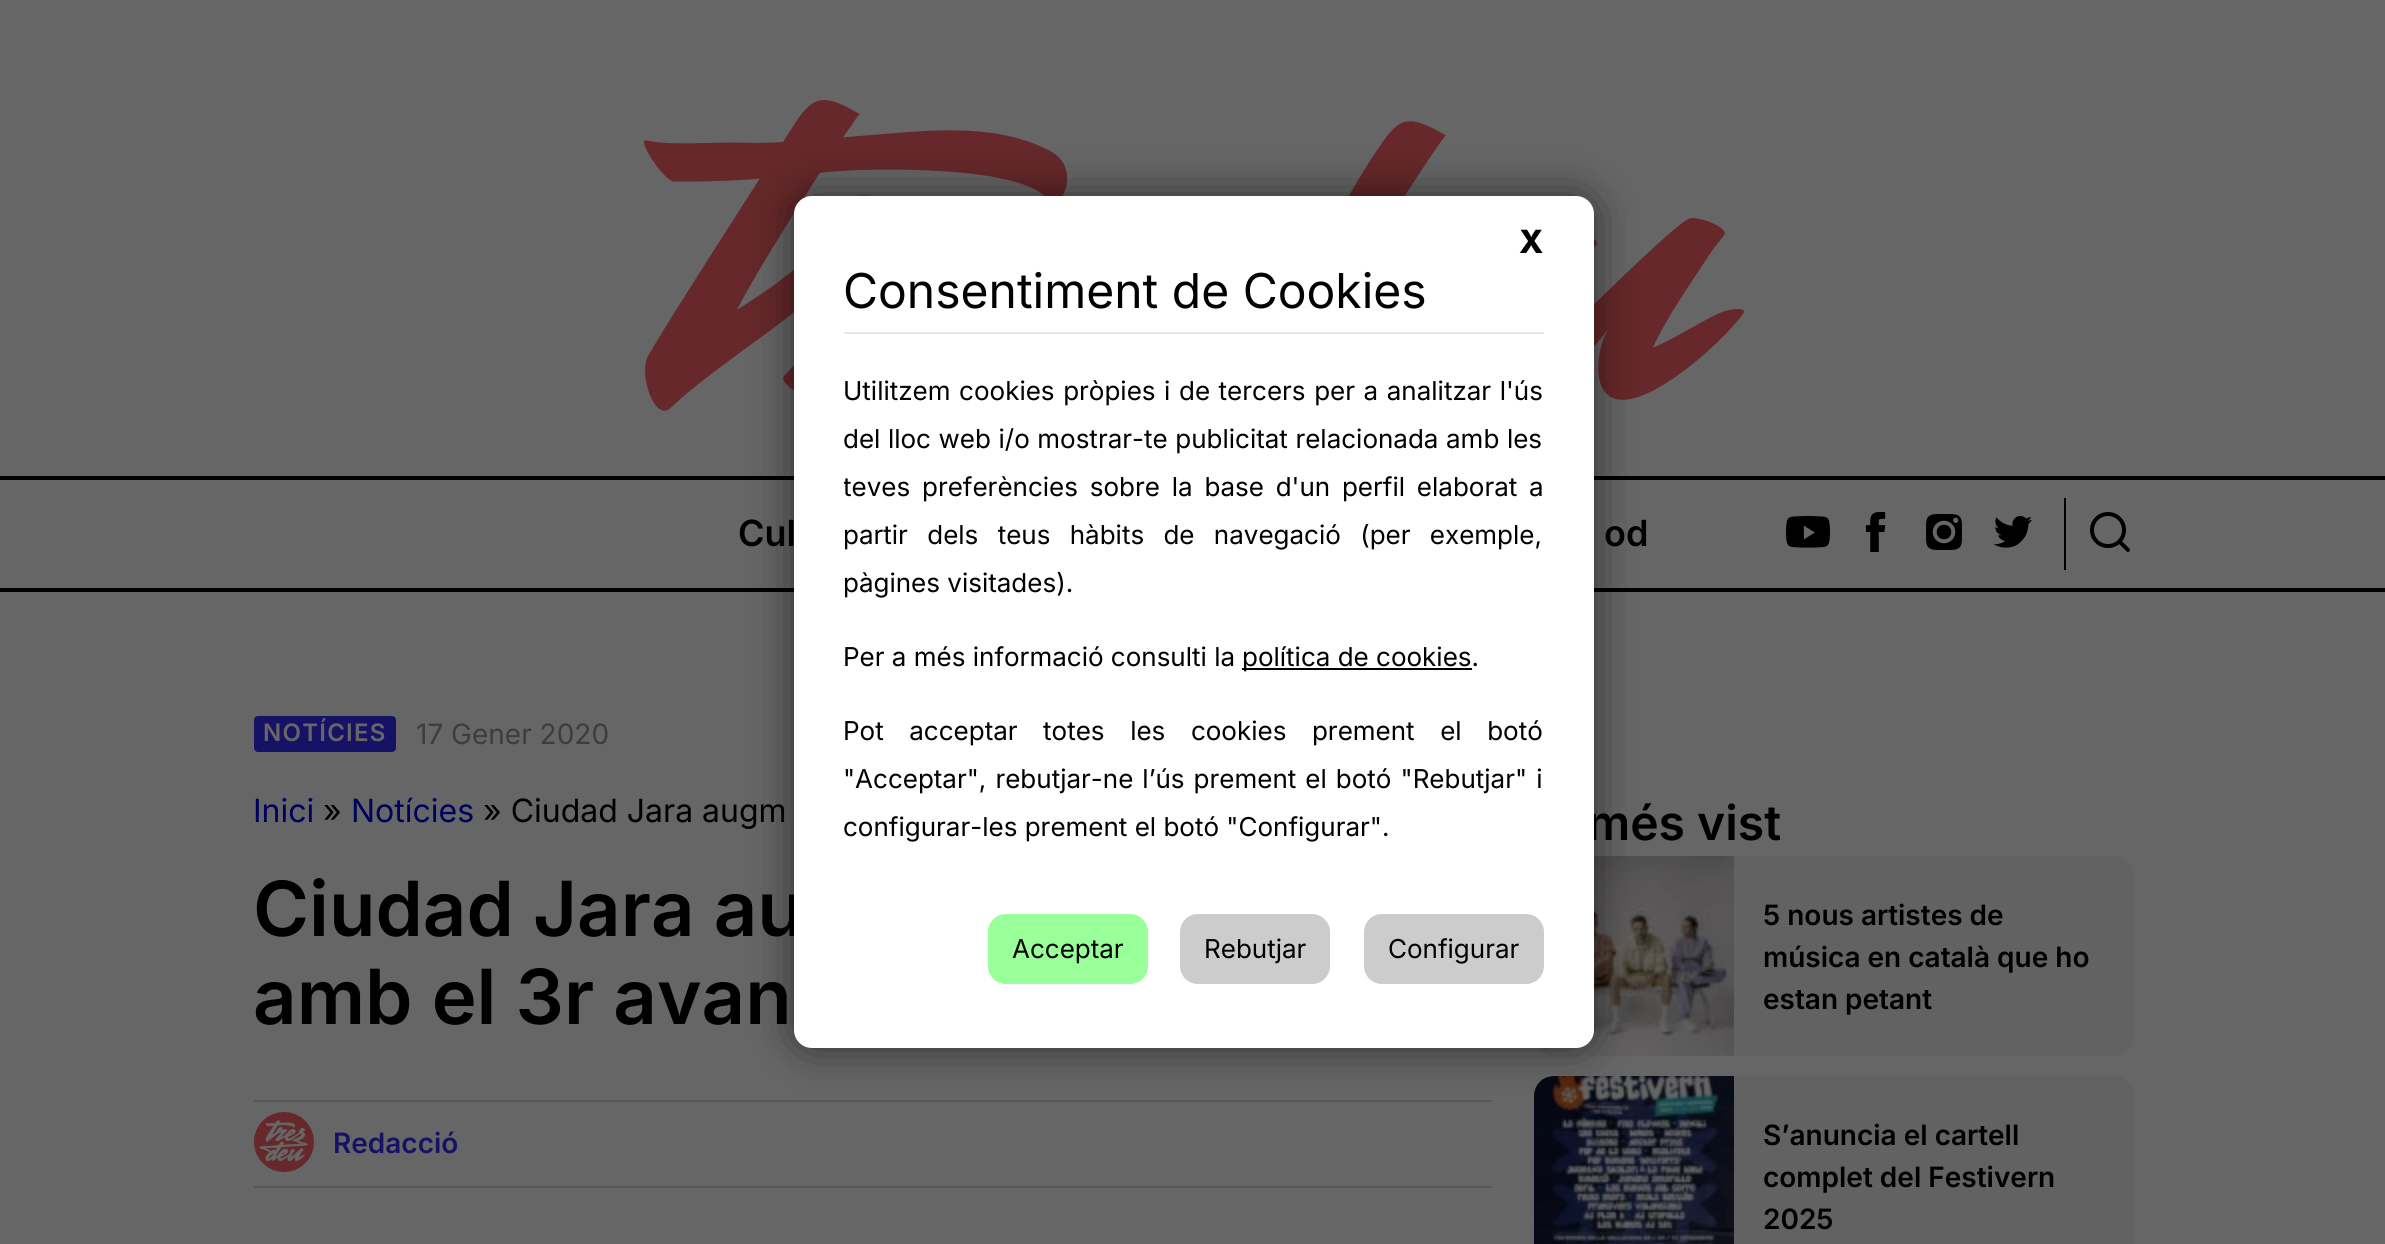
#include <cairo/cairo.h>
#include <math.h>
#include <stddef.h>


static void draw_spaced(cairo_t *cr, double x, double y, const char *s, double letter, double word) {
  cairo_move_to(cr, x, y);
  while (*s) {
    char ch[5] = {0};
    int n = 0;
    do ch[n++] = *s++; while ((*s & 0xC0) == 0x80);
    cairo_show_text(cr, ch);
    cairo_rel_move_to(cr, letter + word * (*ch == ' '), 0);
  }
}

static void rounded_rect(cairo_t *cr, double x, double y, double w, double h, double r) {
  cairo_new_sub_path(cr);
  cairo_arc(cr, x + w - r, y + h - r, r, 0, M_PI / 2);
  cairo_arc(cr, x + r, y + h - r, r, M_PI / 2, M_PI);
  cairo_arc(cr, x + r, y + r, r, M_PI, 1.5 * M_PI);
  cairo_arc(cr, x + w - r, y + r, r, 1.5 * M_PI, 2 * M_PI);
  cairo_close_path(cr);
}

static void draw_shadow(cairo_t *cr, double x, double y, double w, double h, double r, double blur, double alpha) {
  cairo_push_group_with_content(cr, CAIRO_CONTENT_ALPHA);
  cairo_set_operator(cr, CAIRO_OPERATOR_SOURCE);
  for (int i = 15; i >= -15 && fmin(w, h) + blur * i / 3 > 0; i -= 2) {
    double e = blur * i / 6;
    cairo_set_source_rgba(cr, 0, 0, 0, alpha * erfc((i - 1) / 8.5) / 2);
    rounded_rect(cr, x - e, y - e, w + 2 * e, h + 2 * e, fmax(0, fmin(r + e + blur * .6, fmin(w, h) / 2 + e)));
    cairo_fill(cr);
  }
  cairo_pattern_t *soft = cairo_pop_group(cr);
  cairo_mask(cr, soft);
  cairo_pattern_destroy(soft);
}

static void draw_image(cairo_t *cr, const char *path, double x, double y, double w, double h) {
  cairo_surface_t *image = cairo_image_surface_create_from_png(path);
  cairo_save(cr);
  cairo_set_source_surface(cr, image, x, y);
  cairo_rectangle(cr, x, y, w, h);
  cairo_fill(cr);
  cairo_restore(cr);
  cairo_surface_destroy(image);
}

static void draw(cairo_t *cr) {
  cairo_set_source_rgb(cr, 102 / 255.0, 102 / 255.0, 102 / 255.0);
  cairo_paint(cr);
  draw_image(cr, "images/1.png", 644, 100, 1100, 311);
  cairo_set_source_rgb(cr, 0, 0, 0);
  cairo_rectangle(cr, 0, 476, 2385, 4);
  cairo_fill(cr);
  cairo_rectangle(cr, 0, 588, 2385, 4);
  cairo_fill(cr);
  cairo_set_source_rgb(cr, 88 / 255.0, 88 / 255.0, 88 / 255.0);
  cairo_rectangle(cr, 254, 1100, 1238, 2);
  cairo_fill(cr);
  cairo_set_source_rgb(cr, 98 / 255.0, 98 / 255.0, 98 / 255.0);
  rounded_rect(cr, 1534, 856, 600, 200, 20);
  cairo_fill(cr);
  draw_image(cr, "images/7.png", 1538, 856, 196, 200);
  rounded_rect(cr, 1534, 1076, 600, 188, 20);
  cairo_fill(cr);
  draw_image(cr, "images/8.png", 1534, 1076, 200, 168);
  cairo_set_source_rgb(cr, 0, 0, 0);
  draw_shadow(cr, 794, 196, 800, 852, 18, 22, 0.54);
  draw_image(cr, "images/2.png", 1786, 516, 44, 32);
  draw_image(cr, "images/3.png", 1866, 512, 20, 40);
  draw_image(cr, "images/4.png", 1926, 514, 36, 36);
  draw_image(cr, "images/5.png", 1994, 516, 38, 32);
  cairo_set_source_rgb(cr, 0, 0, 0);
  cairo_rectangle(cr, 2064, 498, 2, 72);
  cairo_fill(cr);
  cairo_new_path(cr);
  cairo_move_to(cr, 2108, 546);
  cairo_curve_to(cr, 2117, 546, 2124, 539, 2124, 530);
  cairo_curve_to(cr, 2124, 521, 2117, 514, 2108, 514);
  cairo_curve_to(cr, 2099, 514, 2092, 521, 2092, 530);
  cairo_curve_to(cr, 2092, 539, 2099, 546, 2108, 546);
  cairo_close_path(cr);
  cairo_move_to(cr, 2128, 550);
  cairo_line_to(cr, 2119.5, 541.5);
  cairo_set_line_width(cr, 4);
  cairo_set_line_cap(cr, CAIRO_LINE_CAP_ROUND);
  cairo_set_line_join(cr, CAIRO_LINE_JOIN_ROUND);
  cairo_stroke(cr);
  cairo_set_source_rgb(cr, 22 / 255.0, 19 / 255.0, 102 / 255.0);
  rounded_rect(cr, 254, 716, 142, 36, 4);
  cairo_fill(cr);
  cairo_set_source_rgb(cr, 88 / 255.0, 88 / 255.0, 88 / 255.0);
  cairo_rectangle(cr, 254, 1186, 1238, 2);
  cairo_fill(cr);
  cairo_set_source_rgb(cr, 98 / 255.0, 98 / 255.0, 98 / 255.0);
  cairo_arc(cr, 284, 1142, 30, 0, 2 * M_PI);
  cairo_fill(cr);
  draw_image(cr, "images/6.png", 254, 1112, 60, 60);
  cairo_select_font_face(cr, "Inter SemiBold", CAIRO_FONT_SLANT_NORMAL, CAIRO_FONT_WEIGHT_NORMAL);
  cairo_set_font_size(cr, 36);
  cairo_set_source_rgb(cr, 0, 0, 0);
  cairo_move_to(cr, 738, 546);
  cairo_show_text(cr, "Cul");
  cairo_move_to(cr, 1604, 546);
  cairo_show_text(cr, "od");
  cairo_set_font_size(cr, 24);
  cairo_set_source_rgb(cr, 102 / 255.0, 102 / 255.0, 102 / 255.0);
  draw_spaced(cr, 263, 741, "NOTÍCIES", 1.25, 0);
  cairo_select_font_face(cr, "Inter", CAIRO_FONT_SLANT_NORMAL, CAIRO_FONT_WEIGHT_NORMAL);
  cairo_set_font_size(cr, 28);
  cairo_set_source_rgb(cr, 61 / 255.0, 61 / 255.0, 61 / 255.0);
  cairo_move_to(cr, 416, 744);
  cairo_show_text(cr, "17 Gener 2020");
  cairo_set_font_size(cr, 32);
  cairo_set_source_rgb(cr, 0, 0, 95 / 255.0);
  cairo_move_to(cr, 253, 822);
  cairo_show_text(cr, "Inici");
  cairo_set_source_rgb(cr, 0, 0, 0);
  cairo_move_to(cr, 323, 822);
  cairo_show_text(cr, "»");
  cairo_set_source_rgb(cr, 0, 0, 95 / 255.0);
  cairo_move_to(cr, 351, 822);
  cairo_show_text(cr, "Notícies");
  cairo_set_source_rgb(cr, 0, 0, 0);
  cairo_move_to(cr, 483, 822);
  cairo_show_text(cr, "» Ciudad Jara augm");
  cairo_select_font_face(cr, "Inter SemiBold", CAIRO_FONT_SLANT_NORMAL, CAIRO_FONT_WEIGHT_NORMAL);
  cairo_set_font_size(cr, 76);
  cairo_move_to(cr, 253, 936);
  cairo_show_text(cr, "Ciudad Jara au");
  cairo_move_to(cr, 253, 1024);
  cairo_show_text(cr, "amb el 3r avan");
  cairo_set_font_size(cr, 28);
  cairo_set_source_rgb(cr, 22 / 255.0, 19 / 255.0, 102 / 255.0);
  cairo_move_to(cr, 333, 1153);
  cairo_show_text(cr, "Redacció");
  cairo_set_font_size(cr, 48);
  cairo_set_source_rgb(cr, 0, 0, 0);
  cairo_move_to(cr, 1587, 840);
  cairo_show_text(cr, "més vist");
  cairo_set_source_rgb(cr, 1, 1, 1);
  rounded_rect(cr, 794, 196, 800, 852, 18);
  cairo_fill(cr);
  cairo_set_source_rgb(cr, 204 / 255.0, 204 / 255.0, 204 / 255.0);
  rounded_rect(cr, 1364, 914, 180, 70, 18);
  cairo_fill(cr);
  cairo_select_font_face(cr, "Inter", CAIRO_FONT_SLANT_NORMAL, CAIRO_FONT_WEIGHT_NORMAL);
  cairo_set_font_size(cr, 26);
  cairo_set_source_rgb(cr, 0, 0, 0);
  cairo_move_to(cr, 1388, 958);
  cairo_show_text(cr, "Configurar");
  cairo_set_source_rgb(cr, 204 / 255.0, 204 / 255.0, 204 / 255.0);
  rounded_rect(cr, 1180, 914, 150, 70, 18);
  cairo_fill(cr);
  cairo_set_source_rgb(cr, 0, 0, 0);
  cairo_move_to(cr, 1204, 958);
  cairo_show_text(cr, "Rebutjar");
  cairo_set_source_rgb(cr, 153 / 255.0, 1, 153 / 255.0);
  rounded_rect(cr, 988, 914, 160, 70, 18);
  cairo_fill(cr);
  cairo_set_source_rgb(cr, 0, 0, 0);
  cairo_move_to(cr, 1012, 958);
  cairo_show_text(cr, "Acceptar");
  cairo_move_to(cr, 843, 836);
  cairo_show_text(cr, "configurar-les prement el botó \"Configurar\".");
  draw_spaced(cr, 843, 788, "\"Acceptar\", rebutjar-ne l’ús prement el botó \"Rebutjar\" i", 0, 1.75);
  draw_spaced(cr, 843, 740, "Pot acceptar totes les cookies prement el botó", 0, 18.25);
  cairo_rectangle(cr, 1242, 668, 230, 2);
  cairo_fill(cr);
  cairo_move_to(cr, 1242, 666);
  cairo_show_text(cr, "política de cookies.");
  cairo_move_to(cr, 843, 666);
  cairo_show_text(cr, "Per a més informació consulti la");
  cairo_move_to(cr, 843, 592);
  cairo_show_text(cr, "pàgines visitades).");
  draw_spaced(cr, 843, 544, "partir dels teus hàbits de navegació (per exemple,", 0, 12);
  cairo_save(cr);
  cairo_rectangle(cr, 844, 366, 700, 618);
  cairo_clip(cr);
  draw_spaced(cr, 843, 496, "teves preferències sobre la base d'un perfil elaborat a", 0, 4.5);
  cairo_restore(cr);
  draw_spaced(cr, 843, 448, "del lloc web i/o mostrar-te publicitat relacionada amb les", 0, 0.25);
  draw_spaced(cr, 843, 400, "Utilitzem cookies pròpies i de tercers per a analitzar l'ús", 0, 1.25);
  cairo_set_font_size(cr, 48);
  cairo_move_to(cr, 843, 308);
  cairo_show_text(cr, "Consentiment de Cookies");
  cairo_select_font_face(cr, "Inter ExtraBold", CAIRO_FONT_SLANT_NORMAL, CAIRO_FONT_WEIGHT_NORMAL);
  cairo_set_font_size(cr, 32);
  cairo_move_to(cr, 1519, 253);
  cairo_show_text(cr, "X");
  cairo_set_source_rgb(cr, 230 / 255.0, 230 / 255.0, 230 / 255.0);
  cairo_rectangle(cr, 844, 332, 700, 2);
  cairo_fill(cr);
  cairo_select_font_face(cr, "Inter SemiBold", CAIRO_FONT_SLANT_NORMAL, CAIRO_FONT_WEIGHT_NORMAL);
  cairo_set_font_size(cr, 28);
  cairo_set_source_rgb(cr, 0, 0, 0);
  cairo_move_to(cr, 1763, 925);
  cairo_show_text(cr, "5 nous artistes de");
  cairo_move_to(cr, 1763, 967);
  cairo_show_text(cr, "música en català que ho");
  cairo_move_to(cr, 1763, 1009);
  cairo_show_text(cr, "estan petant");
  cairo_move_to(cr, 1763, 1145);
  cairo_show_text(cr, "S’anuncia el cartell");
  cairo_move_to(cr, 1763, 1187);
  cairo_show_text(cr, "complet del Festivern");
  cairo_move_to(cr, 1763, 1229);
  cairo_show_text(cr, "2025");
}

int main(void) {
  cairo_surface_t *surface = cairo_image_surface_create(CAIRO_FORMAT_RGB24, 2385, 1244);
  cairo_t *cr = cairo_create(surface);
  cairo_font_options_t *options = cairo_font_options_create();
  cairo_font_options_set_hint_metrics(options, CAIRO_HINT_METRICS_OFF);
  cairo_font_options_set_hint_style(options, CAIRO_HINT_STYLE_NONE);
  cairo_set_font_options(cr, options);
  cairo_set_miter_limit(cr, 4);
  draw(cr);
  cairo_surface_write_to_png(surface, "out.png");
  cairo_font_options_destroy(options);
  cairo_destroy(cr);
  cairo_surface_destroy(surface);
  return 0;
}
